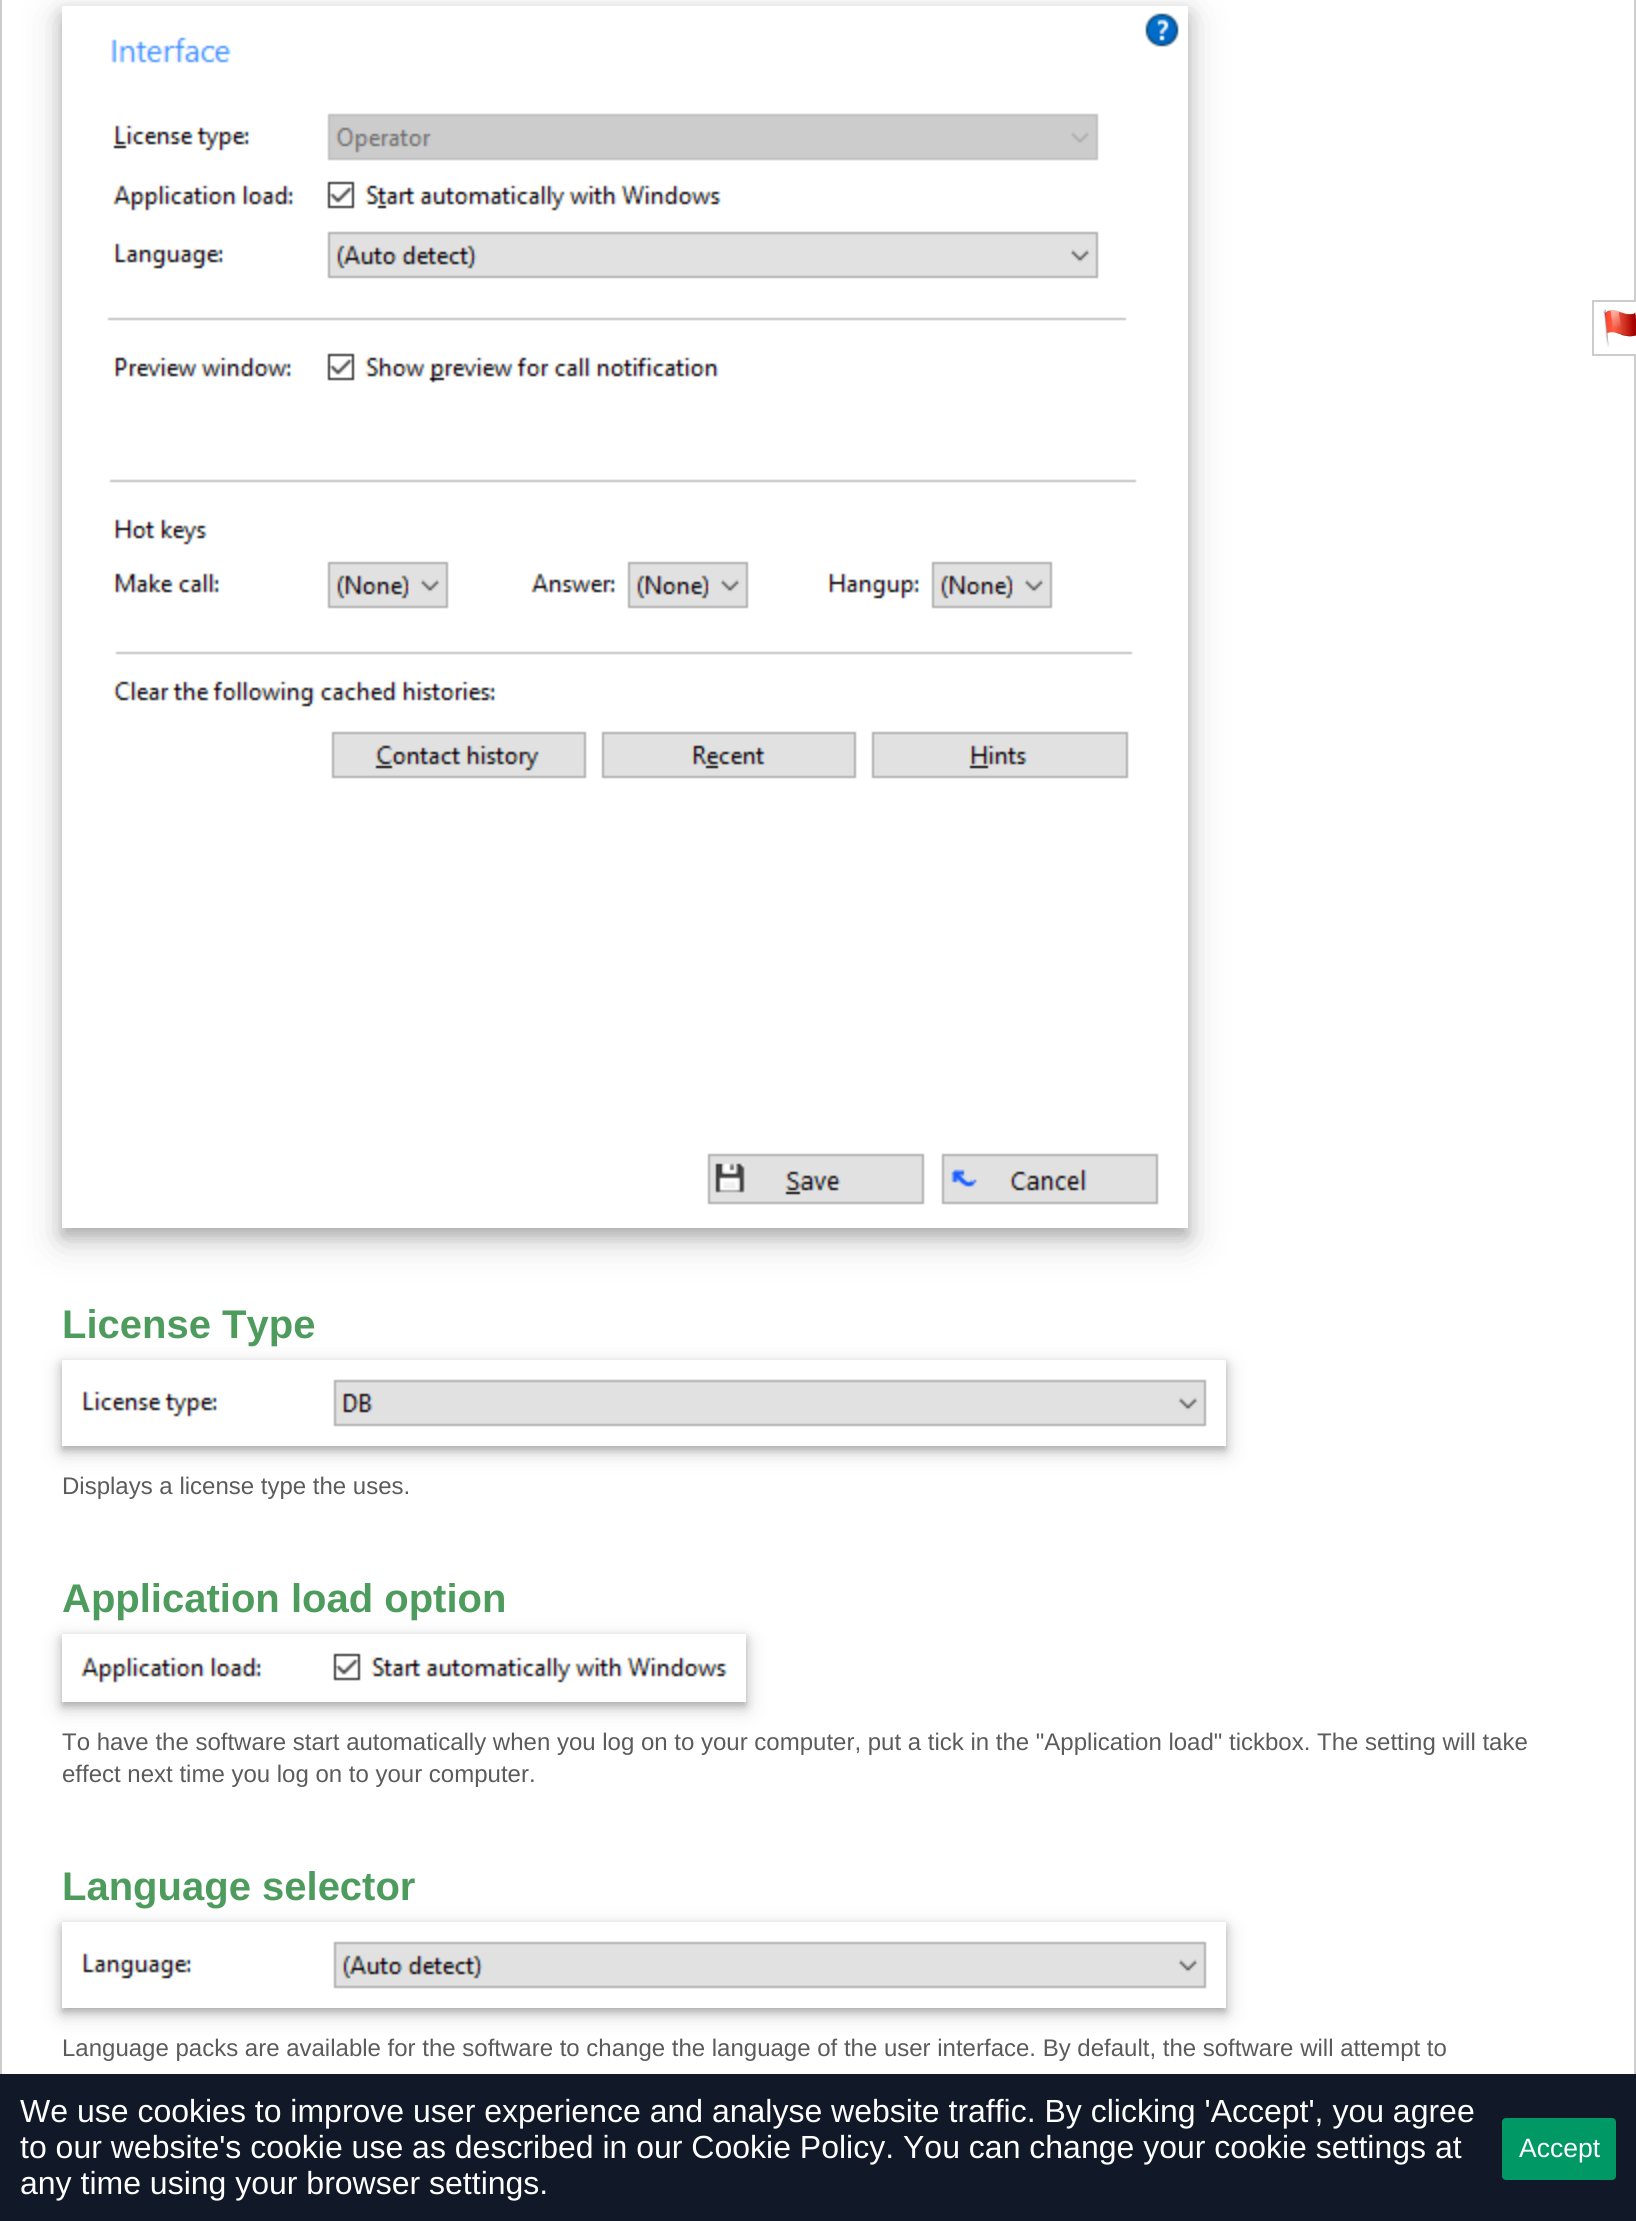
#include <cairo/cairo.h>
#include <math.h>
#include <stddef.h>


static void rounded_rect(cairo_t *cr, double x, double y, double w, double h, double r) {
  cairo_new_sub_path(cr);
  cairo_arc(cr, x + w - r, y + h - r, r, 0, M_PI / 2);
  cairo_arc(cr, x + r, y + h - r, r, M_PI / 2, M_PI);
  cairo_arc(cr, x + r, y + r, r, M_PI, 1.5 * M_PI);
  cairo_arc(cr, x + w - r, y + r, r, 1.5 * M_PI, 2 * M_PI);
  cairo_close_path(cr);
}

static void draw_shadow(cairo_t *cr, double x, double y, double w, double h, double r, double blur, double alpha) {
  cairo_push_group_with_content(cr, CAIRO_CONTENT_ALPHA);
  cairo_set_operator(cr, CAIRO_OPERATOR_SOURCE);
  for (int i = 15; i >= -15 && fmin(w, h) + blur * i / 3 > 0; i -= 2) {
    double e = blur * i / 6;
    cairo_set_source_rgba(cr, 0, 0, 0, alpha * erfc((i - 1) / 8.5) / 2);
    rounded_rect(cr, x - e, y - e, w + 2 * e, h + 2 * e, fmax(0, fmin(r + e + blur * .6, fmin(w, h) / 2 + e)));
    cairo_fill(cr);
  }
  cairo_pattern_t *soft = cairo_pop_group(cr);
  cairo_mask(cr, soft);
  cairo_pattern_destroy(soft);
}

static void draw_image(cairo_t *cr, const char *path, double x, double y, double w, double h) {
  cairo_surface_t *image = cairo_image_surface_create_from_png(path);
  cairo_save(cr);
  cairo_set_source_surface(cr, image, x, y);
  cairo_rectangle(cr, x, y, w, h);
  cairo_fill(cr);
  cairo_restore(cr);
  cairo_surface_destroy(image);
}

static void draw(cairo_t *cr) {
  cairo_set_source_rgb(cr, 1, 1, 1);
  cairo_paint(cr);
  cairo_set_source_rgb(cr, 204 / 255.0, 204 / 255.0, 204 / 255.0);
  cairo_rectangle(cr, 1634, 0, 2, 2074);
  cairo_fill(cr);
  cairo_set_source_rgb(cr, 1, 1, 1);
  cairo_rectangle(cr, 1634, 302, 2, 52);
  cairo_fill(cr);
  cairo_rectangle(cr, 1593, 301, 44, 54);
  cairo_set_source_rgb(cr, 204 / 255.0, 204 / 255.0, 204 / 255.0);
  cairo_stroke(cr);
  draw_image(cr, "images/1.png", 1602, 309, 34, 38);
  cairo_rectangle(cr, 0, 0, 2, 2074);
  cairo_fill(cr);
  cairo_save(cr);
  cairo_set_fill_rule(cr, CAIRO_FILL_RULE_EVEN_ODD);
  cairo_new_path(cr);
  cairo_move_to(cr, 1, 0);
  cairo_line_to(cr, 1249, 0);
  cairo_line_to(cr, 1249, 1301);
  cairo_line_to(cr, 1, 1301);
  cairo_close_path(cr);
  cairo_move_to(cr, 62, 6);
  cairo_line_to(cr, 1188, 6);
  cairo_line_to(cr, 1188, 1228);
  cairo_line_to(cr, 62, 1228);
  cairo_close_path(cr);
  cairo_clip(cr);
  cairo_set_source_rgb(cr, 0, 0, 0);
  draw_shadow(cr, 62, 18, 1126, 1222, 0, 20, 0.19);
  cairo_restore(cr);
  cairo_save(cr);
  cairo_set_fill_rule(cr, CAIRO_FILL_RULE_EVEN_ODD);
  cairo_new_path(cr);
  cairo_move_to(cr, 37, 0);
  cairo_line_to(cr, 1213, 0);
  cairo_line_to(cr, 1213, 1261);
  cairo_line_to(cr, 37, 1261);
  cairo_close_path(cr);
  cairo_move_to(cr, 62, 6);
  cairo_line_to(cr, 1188, 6);
  cairo_line_to(cr, 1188, 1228);
  cairo_line_to(cr, 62, 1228);
  cairo_close_path(cr);
  cairo_clip(cr);
  cairo_set_source_rgb(cr, 0, 0, 0);
  draw_shadow(cr, 62, 14, 1126, 1222, 0, 8, 0.2);
  cairo_restore(cr);
  draw_image(cr, "images/2.png", 107, 13, 1072, 1192);
  cairo_save(cr);
  cairo_set_fill_rule(cr, CAIRO_FILL_RULE_EVEN_ODD);
  cairo_new_path(cr);
  cairo_move_to(cr, 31, 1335);
  cairo_line_to(cr, 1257, 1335);
  cairo_line_to(cr, 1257, 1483);
  cairo_line_to(cr, 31, 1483);
  cairo_close_path(cr);
  cairo_move_to(cr, 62, 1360);
  cairo_line_to(cr, 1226, 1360);
  cairo_line_to(cr, 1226, 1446);
  cairo_line_to(cr, 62, 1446);
  cairo_close_path(cr);
  cairo_clip(cr);
  cairo_set_source_rgb(cr, 0, 0, 0);
  draw_shadow(cr, 62, 1366, 1164, 86, 0, 10, 0.19);
  cairo_restore(cr);
  cairo_save(cr);
  cairo_set_fill_rule(cr, CAIRO_FILL_RULE_EVEN_ODD);
  cairo_new_path(cr);
  cairo_move_to(cr, 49, 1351);
  cairo_line_to(cr, 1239, 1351);
  cairo_line_to(cr, 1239, 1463);
  cairo_line_to(cr, 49, 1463);
  cairo_close_path(cr);
  cairo_move_to(cr, 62, 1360);
  cairo_line_to(cr, 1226, 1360);
  cairo_line_to(cr, 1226, 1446);
  cairo_line_to(cr, 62, 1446);
  cairo_close_path(cr);
  cairo_clip(cr);
  cairo_set_source_rgb(cr, 0, 0, 0);
  draw_shadow(cr, 62, 1364, 1164, 86, 0, 4, 0.2);
  cairo_restore(cr);
  draw_image(cr, "images/3.png", 81, 1379, 1126, 48);
  cairo_save(cr);
  cairo_set_fill_rule(cr, CAIRO_FILL_RULE_EVEN_ODD);
  cairo_new_path(cr);
  cairo_move_to(cr, 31, 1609);
  cairo_line_to(cr, 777, 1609);
  cairo_line_to(cr, 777, 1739);
  cairo_line_to(cr, 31, 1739);
  cairo_close_path(cr);
  cairo_move_to(cr, 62, 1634);
  cairo_line_to(cr, 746, 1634);
  cairo_line_to(cr, 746, 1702);
  cairo_line_to(cr, 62, 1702);
  cairo_close_path(cr);
  cairo_clip(cr);
  cairo_set_source_rgb(cr, 0, 0, 0);
  draw_shadow(cr, 62, 1640, 684, 68, 0, 10, 0.19);
  cairo_restore(cr);
  cairo_save(cr);
  cairo_set_fill_rule(cr, CAIRO_FILL_RULE_EVEN_ODD);
  cairo_new_path(cr);
  cairo_move_to(cr, 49, 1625);
  cairo_line_to(cr, 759, 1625);
  cairo_line_to(cr, 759, 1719);
  cairo_line_to(cr, 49, 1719);
  cairo_close_path(cr);
  cairo_move_to(cr, 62, 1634);
  cairo_line_to(cr, 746, 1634);
  cairo_line_to(cr, 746, 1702);
  cairo_line_to(cr, 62, 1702);
  cairo_close_path(cr);
  cairo_clip(cr);
  cairo_set_source_rgb(cr, 0, 0, 0);
  draw_shadow(cr, 62, 1638, 684, 68, 0, 4, 0.2);
  cairo_restore(cr);
  draw_image(cr, "images/4.png", 81, 1653, 646, 30);
  cairo_save(cr);
  cairo_set_fill_rule(cr, CAIRO_FILL_RULE_EVEN_ODD);
  cairo_new_path(cr);
  cairo_move_to(cr, 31, 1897);
  cairo_line_to(cr, 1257, 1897);
  cairo_line_to(cr, 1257, 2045);
  cairo_line_to(cr, 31, 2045);
  cairo_close_path(cr);
  cairo_move_to(cr, 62, 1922);
  cairo_line_to(cr, 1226, 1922);
  cairo_line_to(cr, 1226, 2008);
  cairo_line_to(cr, 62, 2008);
  cairo_close_path(cr);
  cairo_clip(cr);
  cairo_set_source_rgb(cr, 0, 0, 0);
  draw_shadow(cr, 62, 1928, 1164, 86, 0, 10, 0.19);
  cairo_restore(cr);
  cairo_save(cr);
  cairo_set_fill_rule(cr, CAIRO_FILL_RULE_EVEN_ODD);
  cairo_new_path(cr);
  cairo_move_to(cr, 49, 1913);
  cairo_line_to(cr, 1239, 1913);
  cairo_line_to(cr, 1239, 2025);
  cairo_line_to(cr, 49, 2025);
  cairo_close_path(cr);
  cairo_move_to(cr, 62, 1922);
  cairo_line_to(cr, 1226, 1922);
  cairo_line_to(cr, 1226, 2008);
  cairo_line_to(cr, 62, 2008);
  cairo_close_path(cr);
  cairo_clip(cr);
  cairo_set_source_rgb(cr, 0, 0, 0);
  draw_shadow(cr, 62, 1926, 1164, 86, 0, 4, 0.2);
  cairo_restore(cr);
  draw_image(cr, "images/5.png", 81, 1941, 1126, 48);
  cairo_set_source_rgb(cr, 17 / 255.0, 24 / 255.0, 39 / 255.0);
  cairo_rectangle(cr, 0, 2074, 1636, 147);
  cairo_fill(cr);
  cairo_set_source_rgb(cr, 0, 153 / 255.0, 102 / 255.0);
  rounded_rect(cr, 1502, 2118, 114, 62, 4);
  cairo_fill(cr);
  cairo_select_font_face(cr, "Liberation Sans", CAIRO_FONT_SLANT_NORMAL, CAIRO_FONT_WEIGHT_BOLD);
  cairo_set_font_size(cr, 40);
  cairo_set_source_rgb(cr, 78 / 255.0, 156 / 255.0, 93 / 255.0);
  cairo_move_to(cr, 62, 1338);
  cairo_show_text(cr, "License Type");
  cairo_select_font_face(cr, "Liberation Sans", CAIRO_FONT_SLANT_NORMAL, CAIRO_FONT_WEIGHT_NORMAL);
  cairo_set_font_size(cr, 24);
  cairo_set_source_rgb(cr, 91 / 255.0, 91 / 255.0, 91 / 255.0);
  cairo_move_to(cr, 62, 1494);
  cairo_show_text(cr, "Displays a license type the uses.");
  cairo_select_font_face(cr, "Liberation Sans", CAIRO_FONT_SLANT_NORMAL, CAIRO_FONT_WEIGHT_BOLD);
  cairo_set_font_size(cr, 40);
  cairo_set_source_rgb(cr, 78 / 255.0, 156 / 255.0, 93 / 255.0);
  cairo_move_to(cr, 62, 1612);
  cairo_show_text(cr, "Application load option");
  cairo_select_font_face(cr, "Liberation Sans", CAIRO_FONT_SLANT_NORMAL, CAIRO_FONT_WEIGHT_NORMAL);
  cairo_set_font_size(cr, 24);
  cairo_set_source_rgb(cr, 91 / 255.0, 91 / 255.0, 91 / 255.0);
  cairo_move_to(cr, 62, 1750);
  cairo_show_text(cr, "To have the software start automatically when you log on to your computer, put a tick in the \"Application load\" tickbox. The setting will take");
  cairo_move_to(cr, 62, 1782);
  cairo_show_text(cr, "effect next time you log on to your computer.");
  cairo_select_font_face(cr, "Liberation Sans", CAIRO_FONT_SLANT_NORMAL, CAIRO_FONT_WEIGHT_BOLD);
  cairo_set_font_size(cr, 40);
  cairo_set_source_rgb(cr, 78 / 255.0, 156 / 255.0, 93 / 255.0);
  cairo_move_to(cr, 62, 1900);
  cairo_show_text(cr, "Language selector");
  cairo_select_font_face(cr, "Liberation Sans", CAIRO_FONT_SLANT_NORMAL, CAIRO_FONT_WEIGHT_NORMAL);
  cairo_set_font_size(cr, 24);
  cairo_set_source_rgb(cr, 91 / 255.0, 91 / 255.0, 91 / 255.0);
  cairo_move_to(cr, 62, 2056);
  cairo_show_text(cr, "Language packs are available for the software to change the language of the user interface. By default, the software will attempt to");
  cairo_set_font_size(cr, 32);
  cairo_set_source_rgb(cr, 1, 1, 1);
  cairo_move_to(cr, 20, 2122);
  cairo_show_text(cr, "We use cookies to improve user experience and analyse website traffic. By clicking 'Accept', you agree");
  cairo_move_to(cr, 20, 2158);
  cairo_show_text(cr, "to our website's cookie use as described in our Cookie Policy. You can change your cookie settings at");
  cairo_move_to(cr, 20, 2194);
  cairo_show_text(cr, "any time using your browser settings.");
  cairo_set_font_size(cr, 26.5);
  cairo_move_to(cr, 1519, 2157);
  cairo_show_text(cr, "Accept");
}

int main(void) {
  cairo_surface_t *surface = cairo_image_surface_create(CAIRO_FORMAT_RGB24, 1636, 2221);
  cairo_t *cr = cairo_create(surface);
  cairo_font_options_t *options = cairo_font_options_create();
  cairo_font_options_set_hint_metrics(options, CAIRO_HINT_METRICS_OFF);
  cairo_font_options_set_hint_style(options, CAIRO_HINT_STYLE_NONE);
  cairo_set_font_options(cr, options);
  cairo_set_miter_limit(cr, 4);
  draw(cr);
  cairo_surface_write_to_png(surface, "out.png");
  cairo_font_options_destroy(options);
  cairo_destroy(cr);
  cairo_surface_destroy(surface);
  return 0;
}
